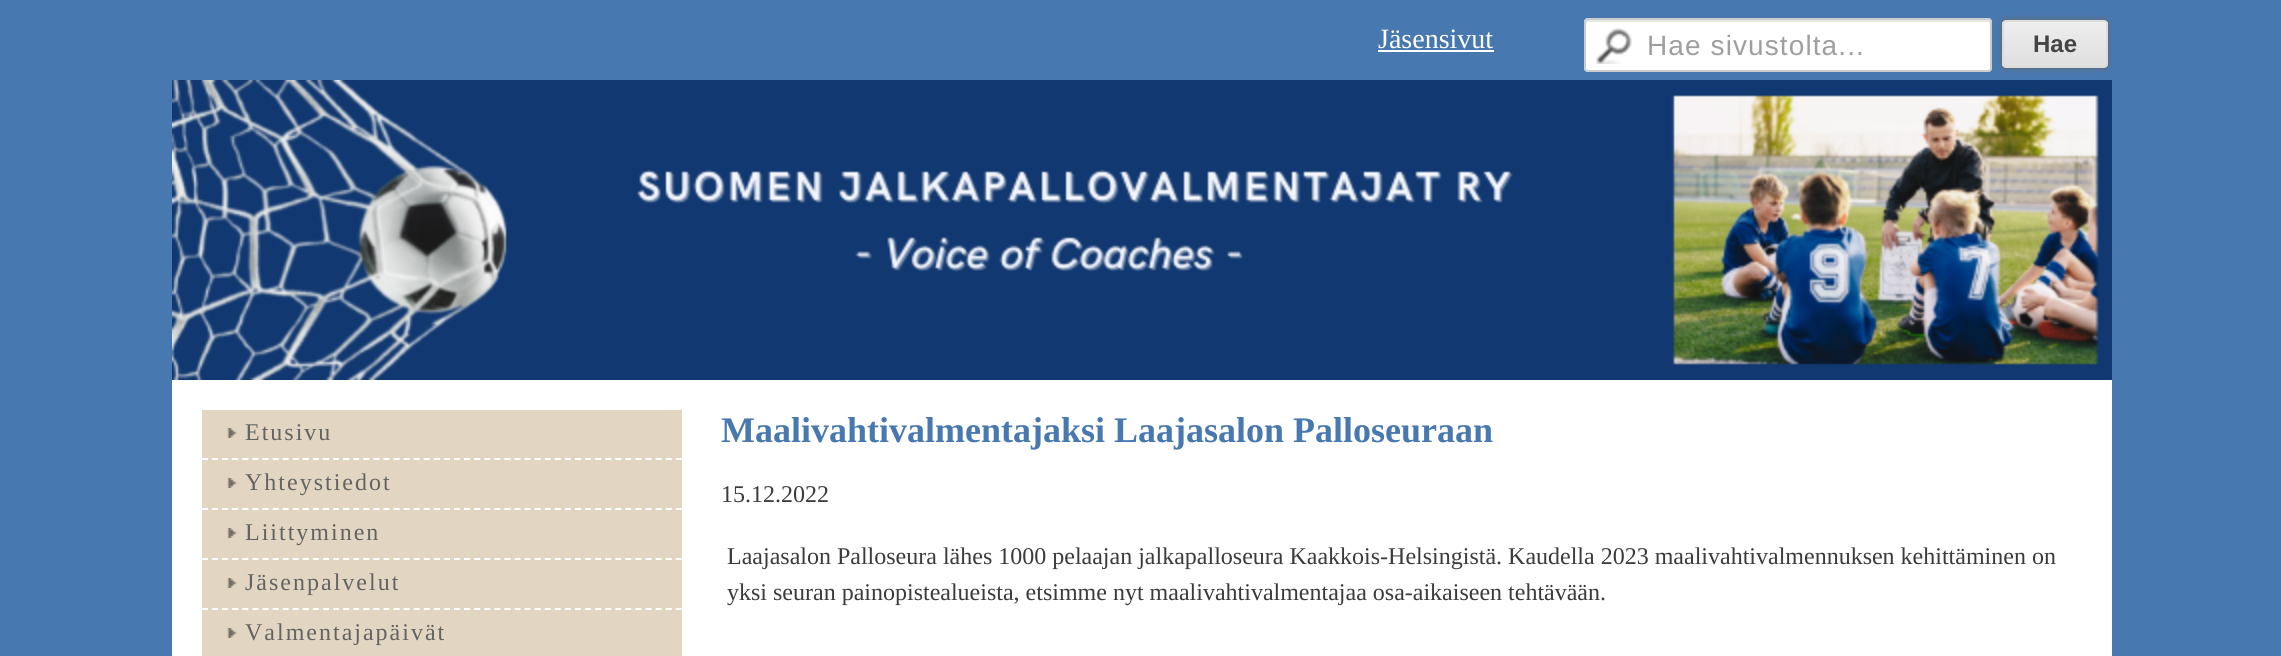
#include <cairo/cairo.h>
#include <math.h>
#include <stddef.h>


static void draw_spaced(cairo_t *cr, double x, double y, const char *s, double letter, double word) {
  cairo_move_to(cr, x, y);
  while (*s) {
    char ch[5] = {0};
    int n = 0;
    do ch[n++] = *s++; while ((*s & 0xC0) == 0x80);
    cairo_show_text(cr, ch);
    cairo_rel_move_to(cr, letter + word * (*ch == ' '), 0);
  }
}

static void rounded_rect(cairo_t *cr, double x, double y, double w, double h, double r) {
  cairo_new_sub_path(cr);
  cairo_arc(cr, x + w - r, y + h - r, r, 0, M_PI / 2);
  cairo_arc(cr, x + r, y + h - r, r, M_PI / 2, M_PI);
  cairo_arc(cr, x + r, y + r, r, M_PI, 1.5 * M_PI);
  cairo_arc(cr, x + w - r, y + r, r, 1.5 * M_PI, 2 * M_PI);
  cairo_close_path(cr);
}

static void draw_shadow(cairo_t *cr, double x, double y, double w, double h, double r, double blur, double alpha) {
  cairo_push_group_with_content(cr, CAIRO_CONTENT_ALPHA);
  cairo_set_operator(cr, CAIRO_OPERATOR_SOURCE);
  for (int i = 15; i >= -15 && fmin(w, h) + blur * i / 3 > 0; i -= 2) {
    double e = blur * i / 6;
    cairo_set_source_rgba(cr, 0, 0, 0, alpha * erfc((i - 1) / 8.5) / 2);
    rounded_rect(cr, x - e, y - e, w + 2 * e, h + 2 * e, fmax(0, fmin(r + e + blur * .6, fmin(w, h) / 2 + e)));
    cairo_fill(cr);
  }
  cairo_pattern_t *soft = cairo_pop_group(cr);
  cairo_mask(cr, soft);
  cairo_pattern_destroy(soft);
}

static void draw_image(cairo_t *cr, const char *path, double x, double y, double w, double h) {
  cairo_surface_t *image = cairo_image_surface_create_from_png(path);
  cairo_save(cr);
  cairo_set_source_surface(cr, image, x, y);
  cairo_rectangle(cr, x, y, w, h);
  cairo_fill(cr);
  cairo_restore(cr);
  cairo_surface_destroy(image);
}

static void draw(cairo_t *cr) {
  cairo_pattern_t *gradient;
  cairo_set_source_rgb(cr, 72 / 255.0, 120 / 255.0, 176 / 255.0);
  cairo_paint(cr);
  cairo_set_source_rgb(cr, 1, 1, 1);
  cairo_rectangle(cr, 1378, 50, 116, 2);
  cairo_fill(cr);
  rounded_rect(cr, 1584, 18, 408, 54, 4);
  cairo_fill(cr);
  draw_image(cr, "images/1.png", 1596, 28, 36, 36);
  cairo_set_source_rgb(cr, 230 / 255.0, 230 / 255.0, 230 / 255.0);
  cairo_new_path(cr);
  cairo_move_to(cr, 1588, 22);
  cairo_line_to(cr, 1988, 22);
  cairo_curve_to(cr, 1989, 22, 1990, 23, 1990, 24);
  cairo_curve_to(cr, 1990, 22, 1990, 20, 1988, 20);
  cairo_line_to(cr, 1587, 20);
  cairo_curve_to(cr, 1586, 21, 1586, 23, 1586, 24);
  cairo_curve_to(cr, 1586, 23, 1587, 22, 1588, 22);
  cairo_close_path(cr);
  cairo_fill(cr);
  rounded_rect(cr, 1585, 19, 406, 52, 3);
  cairo_set_source_rgb(cr, 204 / 255.0, 204 / 255.0, 204 / 255.0);
  cairo_stroke(cr);
  cairo_save(cr);
  cairo_rectangle(cr, 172, 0, 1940, 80);
  cairo_clip(cr);
  cairo_set_source_rgb(cr, 102 / 255.0, 102 / 255.0, 102 / 255.0);
  draw_shadow(cr, 2002, 20, 106, 48, 4, 3, 1);
  cairo_restore(cr);
  cairo_save(cr);
  rounded_rect(cr, 2002, 20, 106, 48, 4);
  cairo_clip(cr);
  gradient = cairo_pattern_create_linear(2004, 22, 2004, 66);
  cairo_pattern_add_color_stop_rgba(gradient, 0.05, 237 / 255.0, 237 / 255.0, 237 / 255.0, 1);
  cairo_pattern_add_color_stop_rgba(gradient, 1, 223 / 255.0, 223 / 255.0, 223 / 255.0, 1);
  cairo_set_source(cr, gradient);
  cairo_pattern_destroy(gradient);
  cairo_rectangle(cr, 2002, 22, 106, 44);
  cairo_fill(cr);
  cairo_restore(cr);
  rounded_rect(cr, 2003, 21, 104, 46, 3);
  cairo_set_source_rgb(cr, 220 / 255.0, 220 / 255.0, 220 / 255.0);
  cairo_stroke(cr);
  draw_image(cr, "images/2.png", 172, 80, 1940, 300);
  cairo_set_source_rgb(cr, 1, 1, 1);
  cairo_rectangle(cr, 172, 380, 1940, 276);
  cairo_fill(cr);
  cairo_set_source_rgb(cr, 226 / 255.0, 214 / 255.0, 194 / 255.0);
  cairo_rectangle(cr, 202, 410, 480, 246);
  cairo_fill(cr);
  cairo_new_path(cr);
  cairo_move_to(cr, 202, 459);
  cairo_line_to(cr, 682, 459);
  cairo_set_source_rgb(cr, 1, 1, 1);
  cairo_set_dash(cr, (double[]){6, 4.08}, 2, 0);
  cairo_stroke(cr);
  draw_image(cr, "images/3.png", 227, 428, 10, 10);
  cairo_new_path(cr);
  cairo_move_to(cr, 202, 509);
  cairo_line_to(cr, 682, 509);
  cairo_stroke(cr);
  draw_image(cr, "images/3.png", 227, 478, 10, 10);
  cairo_new_path(cr);
  cairo_move_to(cr, 202, 559);
  cairo_line_to(cr, 682, 559);
  cairo_stroke(cr);
  draw_image(cr, "images/3.png", 227, 528, 10, 10);
  cairo_new_path(cr);
  cairo_move_to(cr, 202, 609);
  cairo_line_to(cr, 682, 609);
  cairo_stroke(cr);
  draw_image(cr, "images/3.png", 227, 578, 10, 10);
  draw_image(cr, "images/3.png", 227, 628, 10, 10);
  cairo_select_font_face(cr, "Liberation Serif", CAIRO_FONT_SLANT_NORMAL, CAIRO_FONT_WEIGHT_NORMAL);
  cairo_set_font_size(cr, 28);
  cairo_move_to(cr, 1378, 48);
  cairo_show_text(cr, "Jäsensivut");
  cairo_select_font_face(cr, "Liberation Sans", CAIRO_FONT_SLANT_NORMAL, CAIRO_FONT_WEIGHT_NORMAL);
  cairo_set_source_rgb(cr, 159 / 255.0, 159 / 255.0, 159 / 255.0);
  draw_spaced(cr, 1647, 55, "Hae sivustolta...", 1.1, 0);
  cairo_select_font_face(cr, "Liberation Sans", CAIRO_FONT_SLANT_NORMAL, CAIRO_FONT_WEIGHT_BOLD);
  cairo_set_font_size(cr, 24);
  cairo_set_source_rgb(cr, 68 / 255.0, 68 / 255.0, 68 / 255.0);
  cairo_move_to(cr, 2033, 52);
  cairo_show_text(cr, "Hae");
  cairo_select_font_face(cr, "Liberation Serif", CAIRO_FONT_SLANT_NORMAL, CAIRO_FONT_WEIGHT_NORMAL);
  cairo_set_source_rgb(cr, 99 / 255.0, 99 / 255.0, 99 / 255.0);
  draw_spaced(cr, 245, 440, "Etusivu", 2, 0);
  draw_spaced(cr, 245, 490, "Yhteystiedot", 2, 0);
  draw_spaced(cr, 245, 540, "Liittyminen", 2, 0);
  draw_spaced(cr, 245, 590, "Jäsenpalvelut", 2, 0);
  draw_spaced(cr, 245, 640, "Valmentajapäivät", 2, 0);
  cairo_select_font_face(cr, "Liberation Serif", CAIRO_FONT_SLANT_NORMAL, CAIRO_FONT_WEIGHT_BOLD);
  cairo_set_font_size(cr, 36);
  cairo_set_source_rgb(cr, 72 / 255.0, 120 / 255.0, 176 / 255.0);
  cairo_move_to(cr, 721, 442);
  cairo_show_text(cr, "Maalivahtivalmentajaksi Laajasalon Palloseuraan");
  cairo_select_font_face(cr, "Liberation Serif", CAIRO_FONT_SLANT_NORMAL, CAIRO_FONT_WEIGHT_NORMAL);
  cairo_set_font_size(cr, 24);
  cairo_set_source_rgb(cr, 59 / 255.0, 59 / 255.0, 59 / 255.0);
  cairo_move_to(cr, 721, 502);
  cairo_show_text(cr, "15.12.2022");
  cairo_move_to(cr, 727, 564);
  cairo_show_text(cr, "Laajasalon Palloseura lähes 1000 pelaajan jalkapalloseura Kaakkois-Helsingistä. Kaudella 2023 maalivahtivalmennuksen kehittäminen on");
  cairo_move_to(cr, 727, 600);
  cairo_show_text(cr, "yksi seuran painopistealueista, etsimme nyt maalivahtivalmentajaa osa-aikaiseen tehtävään.");
}

int main(void) {
  cairo_surface_t *surface = cairo_image_surface_create(CAIRO_FORMAT_RGB24, 2281, 656);
  cairo_t *cr = cairo_create(surface);
  cairo_font_options_t *options = cairo_font_options_create();
  cairo_font_options_set_hint_metrics(options, CAIRO_HINT_METRICS_OFF);
  cairo_font_options_set_hint_style(options, CAIRO_HINT_STYLE_NONE);
  cairo_set_font_options(cr, options);
  cairo_set_miter_limit(cr, 4);
  draw(cr);
  cairo_surface_write_to_png(surface, "out.png");
  cairo_font_options_destroy(options);
  cairo_destroy(cr);
  cairo_surface_destroy(surface);
  return 0;
}
